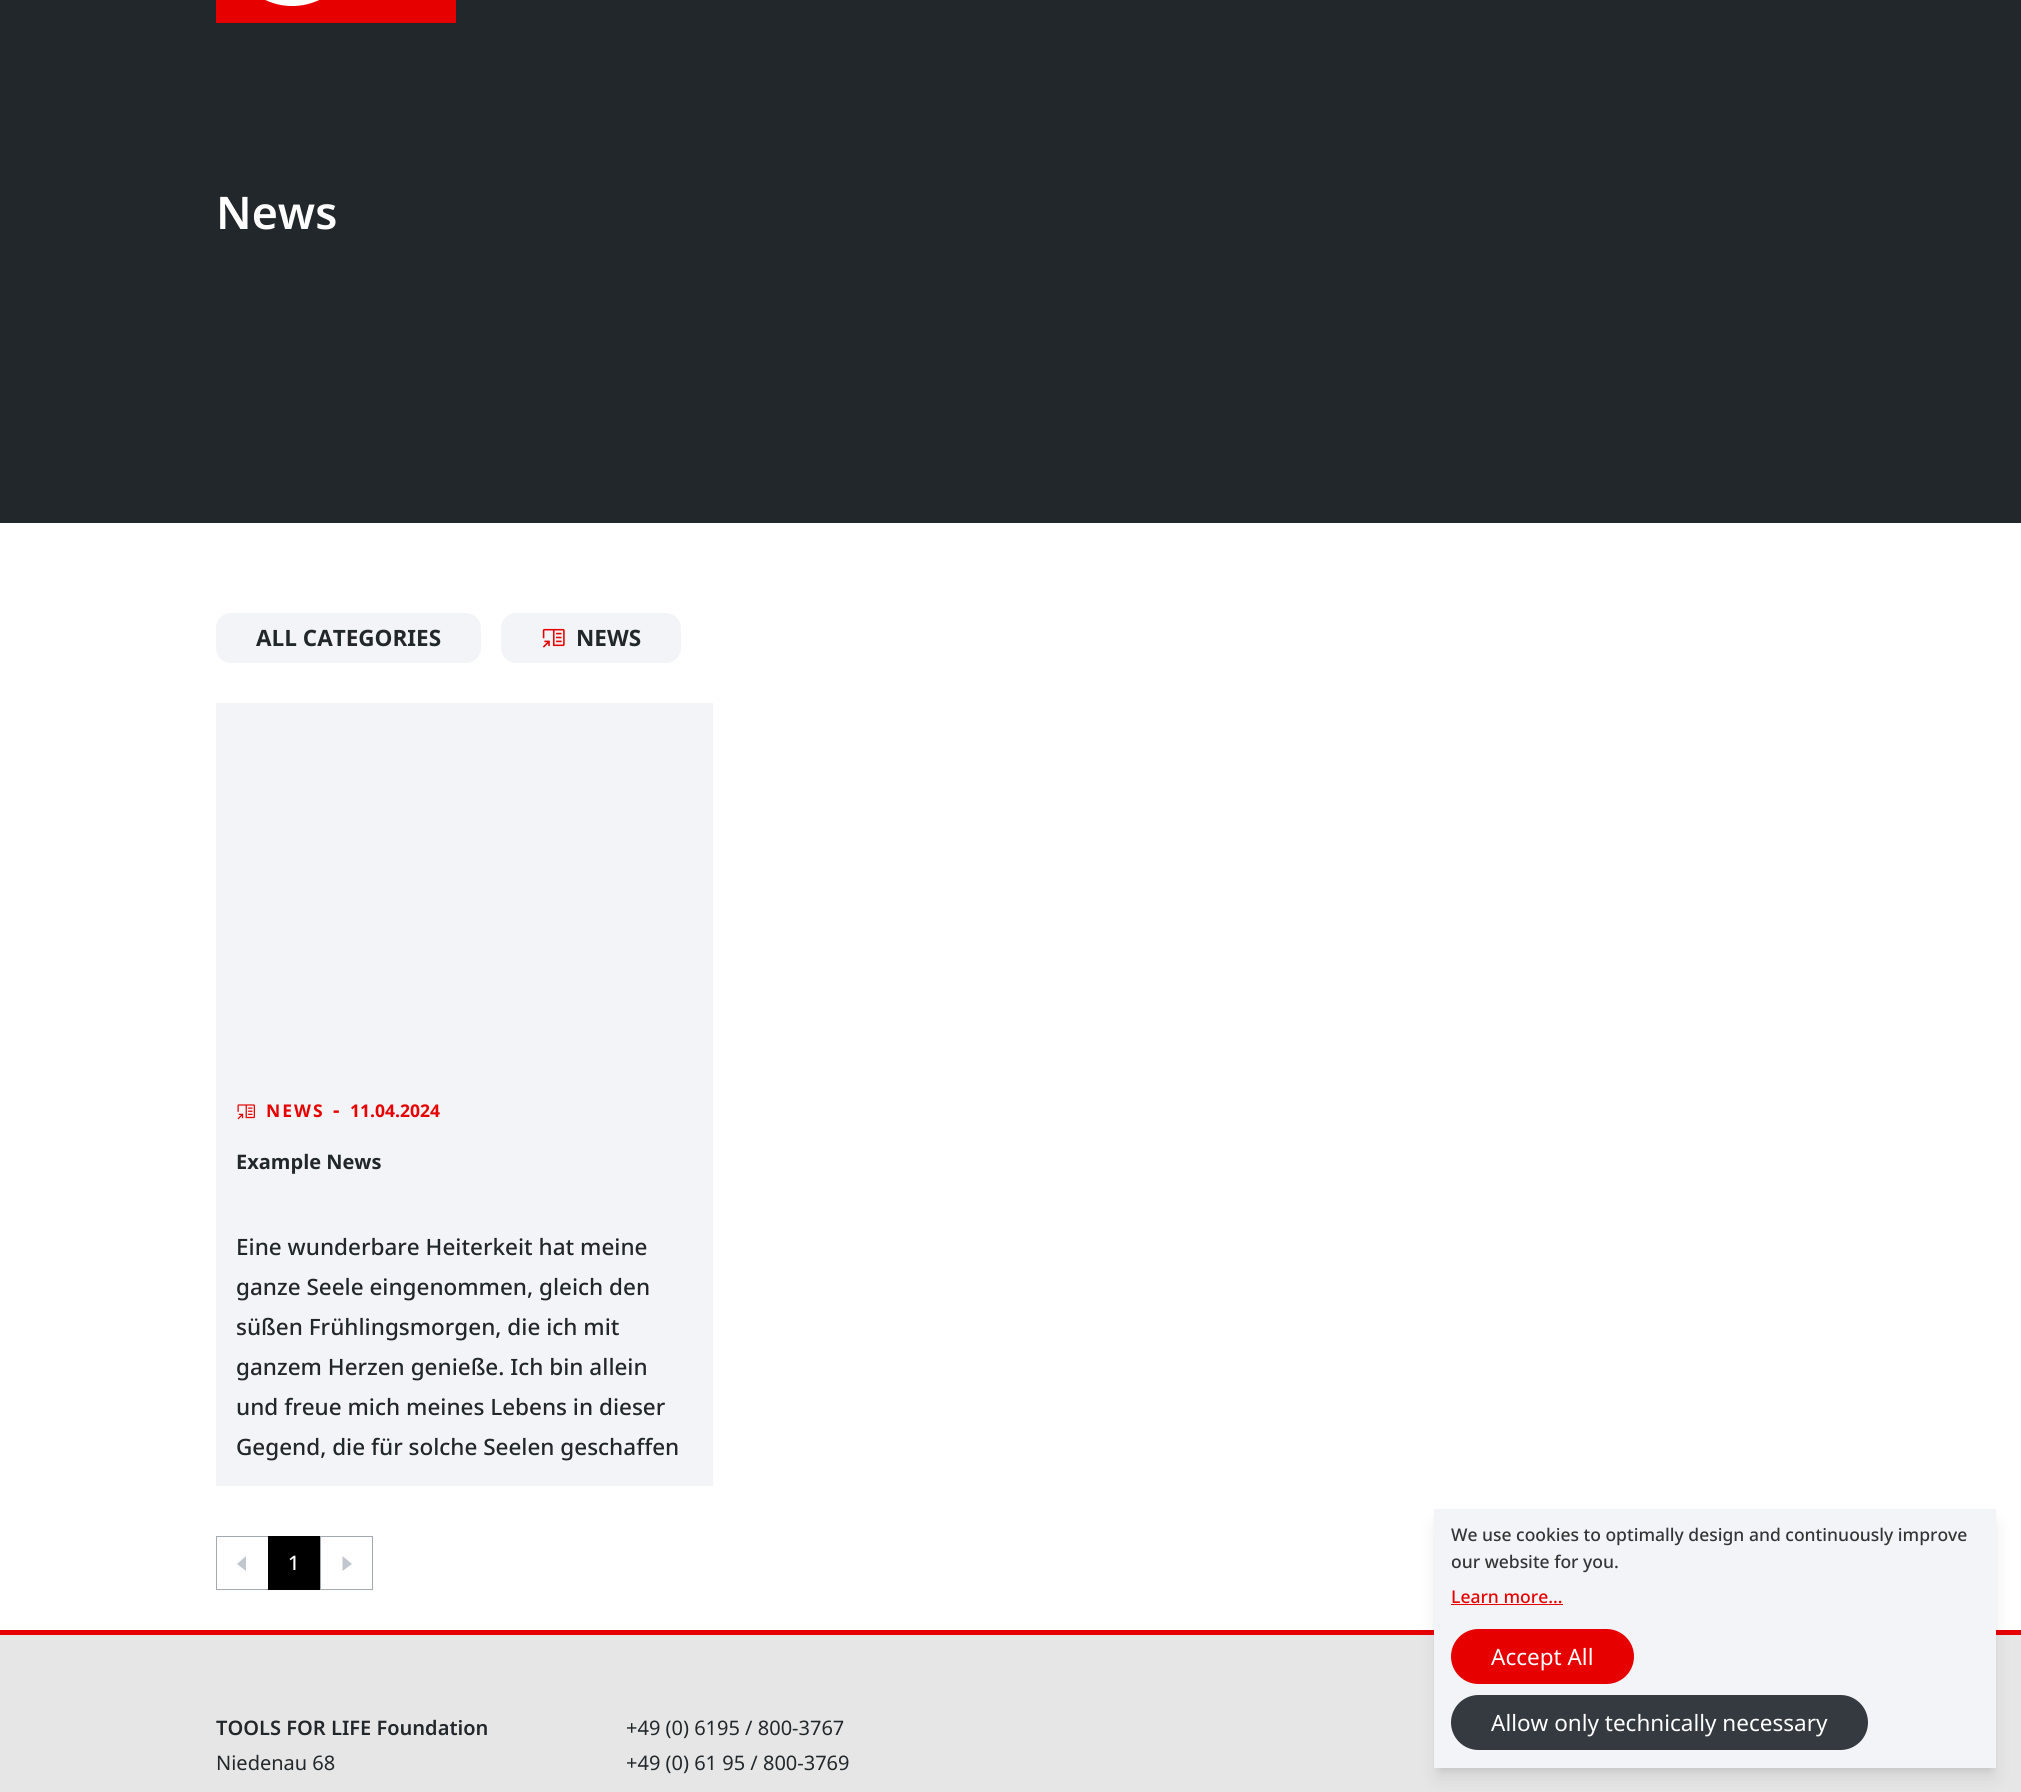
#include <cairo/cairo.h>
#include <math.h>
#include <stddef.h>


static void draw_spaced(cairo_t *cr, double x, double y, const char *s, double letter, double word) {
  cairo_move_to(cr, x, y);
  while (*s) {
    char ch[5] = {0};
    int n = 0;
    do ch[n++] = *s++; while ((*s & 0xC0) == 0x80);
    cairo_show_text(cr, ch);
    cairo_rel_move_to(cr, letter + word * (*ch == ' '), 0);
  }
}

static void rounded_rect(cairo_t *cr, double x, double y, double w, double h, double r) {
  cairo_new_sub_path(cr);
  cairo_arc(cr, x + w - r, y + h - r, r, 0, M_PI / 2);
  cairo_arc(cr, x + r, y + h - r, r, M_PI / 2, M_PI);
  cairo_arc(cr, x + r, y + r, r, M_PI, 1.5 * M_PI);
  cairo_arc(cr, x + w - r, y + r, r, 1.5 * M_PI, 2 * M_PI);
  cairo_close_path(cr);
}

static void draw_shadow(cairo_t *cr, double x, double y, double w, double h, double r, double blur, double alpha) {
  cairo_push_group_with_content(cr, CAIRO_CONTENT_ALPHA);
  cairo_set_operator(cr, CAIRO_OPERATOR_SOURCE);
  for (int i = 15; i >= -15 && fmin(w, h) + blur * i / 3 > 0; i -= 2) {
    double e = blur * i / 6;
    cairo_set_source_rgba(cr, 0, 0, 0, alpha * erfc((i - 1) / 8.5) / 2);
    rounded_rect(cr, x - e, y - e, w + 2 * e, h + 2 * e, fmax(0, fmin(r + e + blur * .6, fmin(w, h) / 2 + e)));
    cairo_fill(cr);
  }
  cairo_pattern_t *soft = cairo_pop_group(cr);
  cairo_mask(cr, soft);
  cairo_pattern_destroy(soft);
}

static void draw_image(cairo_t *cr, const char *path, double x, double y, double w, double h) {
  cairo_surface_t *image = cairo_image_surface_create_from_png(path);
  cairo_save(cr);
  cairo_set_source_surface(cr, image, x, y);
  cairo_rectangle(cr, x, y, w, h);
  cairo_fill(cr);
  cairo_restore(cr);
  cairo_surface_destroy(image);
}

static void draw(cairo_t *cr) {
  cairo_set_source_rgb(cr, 1, 1, 1);
  cairo_paint(cr);
  cairo_set_source_rgb(cr, 33 / 255.0, 39 / 255.0, 42 / 255.0);
  cairo_rectangle(cr, 0, 0, 2021, 523);
  cairo_fill(cr);
  draw_image(cr, "images/1.png", 216, 0, 240, 23);
  cairo_set_source_rgb(cr, 242 / 255.0, 244 / 255.0, 248 / 255.0);
  rounded_rect(cr, 216, 613, 265, 50, 15);
  cairo_fill(cr);
  rounded_rect(cr, 501, 613, 180, 50, 15);
  cairo_fill(cr);
  draw_image(cr, "images/2.png", 542, 628, 23, 20);
  cairo_rectangle(cr, 216, 703, 497, 783);
  cairo_fill(cr);
  draw_image(cr, "images/3.png", 237, 1104, 18, 16);
  cairo_rectangle(cr, 216.5, 1536.5, 52, 53);
  cairo_set_source_rgb(cr, 162 / 255.0, 169 / 255.0, 176 / 255.0);
  cairo_set_line_width(cr, 1);
  cairo_stroke(cr);
  cairo_set_source_rgb(cr, 193 / 255.0, 199 / 255.0, 205 / 255.0);
  cairo_new_path(cr);
  cairo_move_to(cr, 246, 1571);
  cairo_line_to(cr, 237, 1564);
  cairo_line_to(cr, 246, 1556);
  cairo_close_path(cr);
  cairo_fill(cr);
  cairo_set_source_rgb(cr, 0, 0, 0);
  cairo_rectangle(cr, 268, 1536, 52, 54);
  cairo_fill(cr);
  cairo_rectangle(cr, 320.5, 1536.5, 52, 53);
  cairo_set_source_rgb(cr, 162 / 255.0, 169 / 255.0, 176 / 255.0);
  cairo_stroke(cr);
  cairo_set_source_rgb(cr, 193 / 255.0, 199 / 255.0, 205 / 255.0);
  cairo_new_path(cr);
  cairo_move_to(cr, 342.5, 1556);
  cairo_line_to(cr, 352, 1564);
  cairo_line_to(cr, 342.5, 1571);
  cairo_close_path(cr);
  cairo_fill(cr);
  cairo_set_source_rgb(cr, 230 / 255.0, 230 / 255.0, 230 / 255.0);
  cairo_rectangle(cr, 0, 1635, 2021, 157);
  cairo_fill(cr);
  cairo_set_source_rgb(cr, 230 / 255.0, 0, 0);
  cairo_rectangle(cr, 0, 1630, 2021, 5);
  cairo_fill(cr);
  cairo_set_source_rgb(cr, 0, 0, 0);
  draw_shadow(cr, 1439, 1519, 552, 249, 0, 4, 0.1);
  draw_shadow(cr, 1438, 1525, 555, 251, 0, 9.5, 0.1);
  cairo_set_source_rgb(cr, 242 / 255.0, 244 / 255.0, 248 / 255.0);
  cairo_rectangle(cr, 1434, 1509, 562, 259);
  cairo_fill(cr);
  cairo_set_source_rgb(cr, 230 / 255.0, 0, 0);
  cairo_rectangle(cr, 1451, 1604, 112, 1);
  cairo_fill(cr);
  rounded_rect(cr, 1451, 1629, 183, 55, 27.5);
  cairo_fill(cr);
  cairo_set_source_rgb(cr, 52 / 255.0, 58 / 255.0, 63 / 255.0);
  rounded_rect(cr, 1451, 1695, 417, 55, 27.5);
  cairo_fill(cr);
  cairo_select_font_face(cr, "Noto Sans SemiBold", CAIRO_FONT_SLANT_NORMAL, CAIRO_FONT_WEIGHT_NORMAL);
  cairo_set_font_size(cr, 45);
  cairo_set_source_rgb(cr, 1, 1, 1);
  cairo_move_to(cr, 216, 229);
  cairo_show_text(cr, "News");
  cairo_select_font_face(cr, "Noto Sans", CAIRO_FONT_SLANT_NORMAL, CAIRO_FONT_WEIGHT_BOLD);
  cairo_set_font_size(cr, 22.5);
  cairo_set_source_rgb(cr, 33 / 255.0, 39 / 255.0, 42 / 255.0);
  cairo_move_to(cr, 256, 646);
  cairo_show_text(cr, "ALL CATEGORIES");
  cairo_move_to(cr, 576, 646);
  cairo_show_text(cr, "NEWS");
  cairo_set_font_size(cr, 17.5);
  cairo_set_source_rgb(cr, 230 / 255.0, 0, 0);
  draw_spaced(cr, 266, 1117, "NEWS", 2, 0);
  cairo_set_font_size(cr, 20);
  cairo_move_to(cr, 333, 1117);
  cairo_show_text(cr, "-");
  cairo_set_font_size(cr, 17.5);
  cairo_move_to(cr, 350, 1117);
  cairo_show_text(cr, "11.04.2024");
  cairo_set_font_size(cr, 20);
  cairo_set_source_rgb(cr, 33 / 255.0, 39 / 255.0, 42 / 255.0);
  cairo_move_to(cr, 236, 1169);
  cairo_show_text(cr, "Example News");
  cairo_select_font_face(cr, "Noto Sans Medium", CAIRO_FONT_SLANT_NORMAL, CAIRO_FONT_WEIGHT_NORMAL);
  cairo_set_font_size(cr, 22.5);
  cairo_move_to(cr, 236, 1255);
  cairo_show_text(cr, "Eine wunderbare Heiterkeit hat meine");
  cairo_move_to(cr, 236, 1295);
  cairo_show_text(cr, "ganze Seele eingenommen, gleich den");
  cairo_move_to(cr, 236, 1335);
  cairo_show_text(cr, "süßen Frühlingsmorgen, die ich mit");
  cairo_move_to(cr, 236, 1375);
  cairo_show_text(cr, "ganzem Herzen genieße. Ich bin allein");
  cairo_move_to(cr, 236, 1415);
  cairo_show_text(cr, "und freue mich meines Lebens in dieser");
  cairo_move_to(cr, 236, 1455);
  cairo_show_text(cr, "Gegend, die für solche Seelen geschaffen");
  cairo_set_font_size(cr, 20);
  cairo_set_source_rgb(cr, 1, 1, 1);
  cairo_move_to(cr, 288, 1570);
  cairo_show_text(cr, "1");
  cairo_select_font_face(cr, "Noto Sans SemiBold", CAIRO_FONT_SLANT_NORMAL, CAIRO_FONT_WEIGHT_NORMAL);
  cairo_set_source_rgb(cr, 33 / 255.0, 39 / 255.0, 42 / 255.0);
  cairo_move_to(cr, 216, 1735);
  cairo_show_text(cr, "TOOLS FOR LIFE Foundation");
  cairo_select_font_face(cr, "Noto Sans", CAIRO_FONT_SLANT_NORMAL, CAIRO_FONT_WEIGHT_NORMAL);
  cairo_move_to(cr, 216, 1770);
  cairo_show_text(cr, "Niedenau 68");
  cairo_move_to(cr, 626, 1735);
  cairo_show_text(cr, "+49 (0) 6195 / 800-3767");
  cairo_move_to(cr, 626, 1770);
  cairo_show_text(cr, "+49 (0) 61 95 / 800-3769");
  cairo_select_font_face(cr, "Noto Sans Medium", CAIRO_FONT_SLANT_NORMAL, CAIRO_FONT_WEIGHT_NORMAL);
  cairo_set_font_size(cr, 17.5);
  cairo_set_source_rgb(cr, 53 / 255.0, 53 / 255.0, 53 / 255.0);
  cairo_move_to(cr, 1451, 1541);
  cairo_show_text(cr, "We use cookies to optimally design and continuously improve");
  cairo_move_to(cr, 1451, 1568);
  cairo_show_text(cr, "our website for you.");
  cairo_set_source_rgb(cr, 230 / 255.0, 0, 0);
  cairo_move_to(cr, 1451, 1603);
  cairo_show_text(cr, "Learn more...");
  cairo_select_font_face(cr, "Noto Sans", CAIRO_FONT_SLANT_NORMAL, CAIRO_FONT_WEIGHT_NORMAL);
  cairo_set_font_size(cr, 22.5);
  cairo_set_source_rgb(cr, 1, 1, 1);
  cairo_move_to(cr, 1491, 1665);
  cairo_show_text(cr, "Accept All");
  cairo_move_to(cr, 1491, 1731);
  cairo_show_text(cr, "Allow only technically necessary");
}

int main(void) {
  cairo_surface_t *surface = cairo_image_surface_create(CAIRO_FORMAT_RGB24, 2021, 1792);
  cairo_t *cr = cairo_create(surface);
  cairo_font_options_t *options = cairo_font_options_create();
  cairo_font_options_set_hint_metrics(options, CAIRO_HINT_METRICS_OFF);
  cairo_font_options_set_hint_style(options, CAIRO_HINT_STYLE_NONE);
  cairo_set_font_options(cr, options);
  cairo_set_miter_limit(cr, 4);
  draw(cr);
  cairo_surface_write_to_png(surface, "out.png");
  cairo_font_options_destroy(options);
  cairo_destroy(cr);
  cairo_surface_destroy(surface);
  return 0;
}
